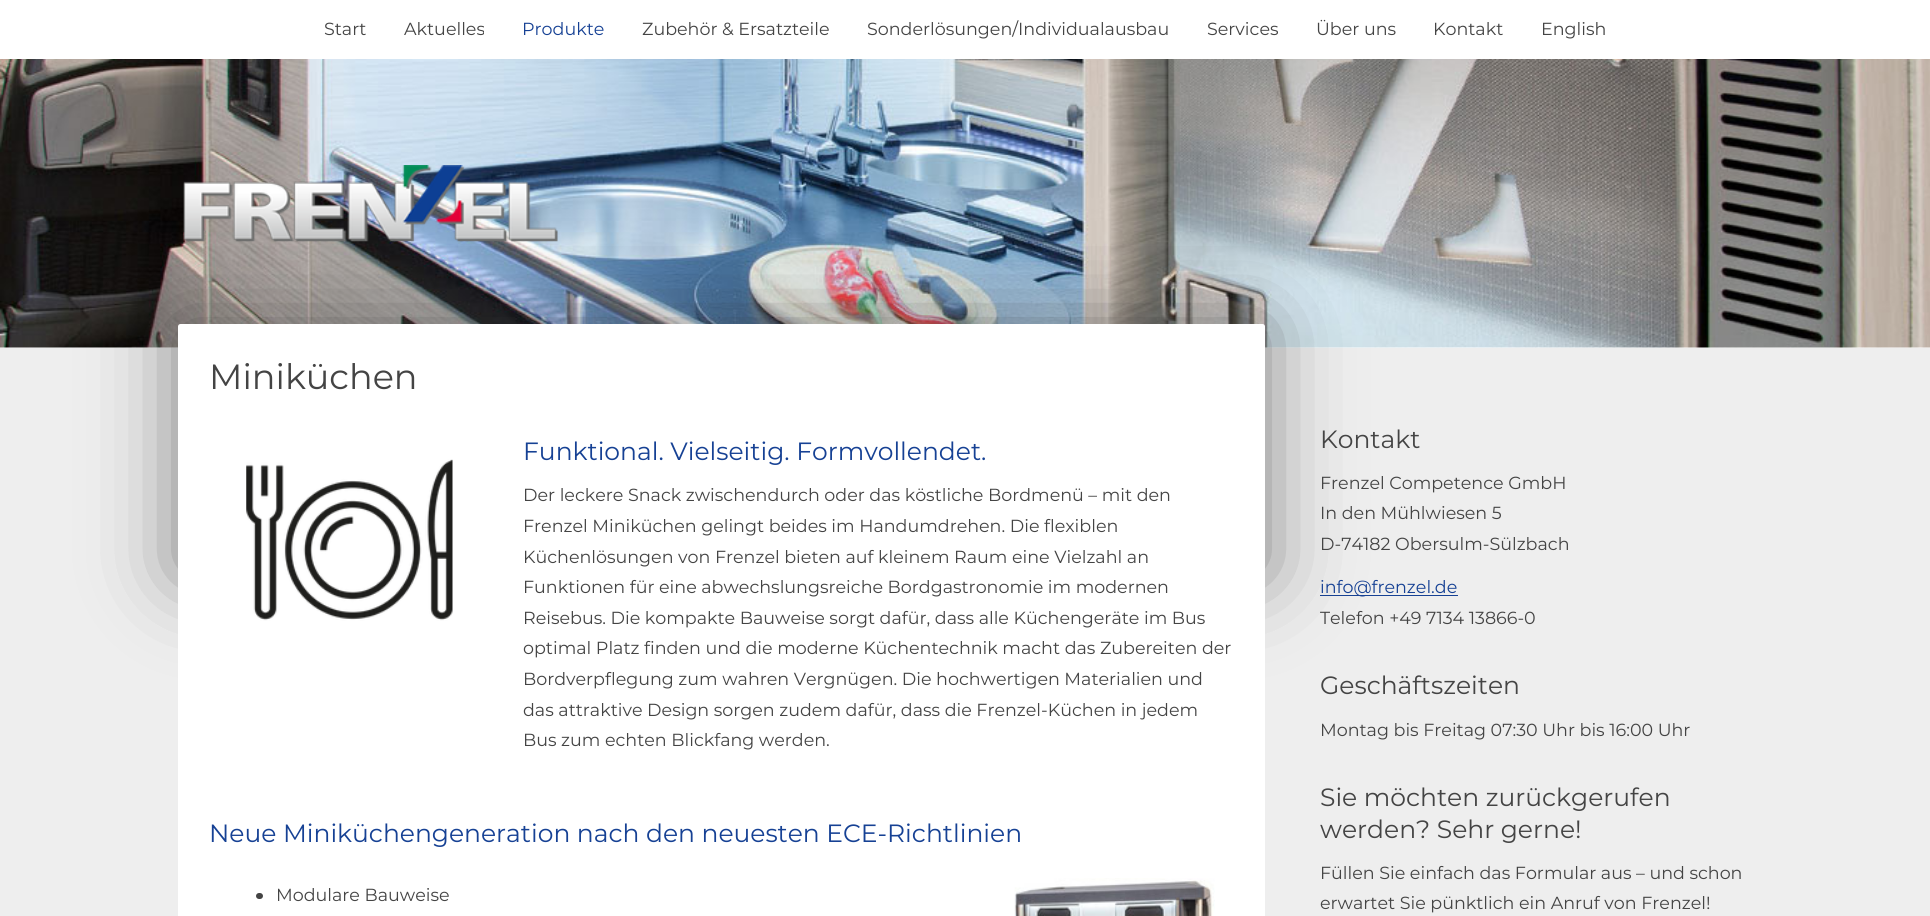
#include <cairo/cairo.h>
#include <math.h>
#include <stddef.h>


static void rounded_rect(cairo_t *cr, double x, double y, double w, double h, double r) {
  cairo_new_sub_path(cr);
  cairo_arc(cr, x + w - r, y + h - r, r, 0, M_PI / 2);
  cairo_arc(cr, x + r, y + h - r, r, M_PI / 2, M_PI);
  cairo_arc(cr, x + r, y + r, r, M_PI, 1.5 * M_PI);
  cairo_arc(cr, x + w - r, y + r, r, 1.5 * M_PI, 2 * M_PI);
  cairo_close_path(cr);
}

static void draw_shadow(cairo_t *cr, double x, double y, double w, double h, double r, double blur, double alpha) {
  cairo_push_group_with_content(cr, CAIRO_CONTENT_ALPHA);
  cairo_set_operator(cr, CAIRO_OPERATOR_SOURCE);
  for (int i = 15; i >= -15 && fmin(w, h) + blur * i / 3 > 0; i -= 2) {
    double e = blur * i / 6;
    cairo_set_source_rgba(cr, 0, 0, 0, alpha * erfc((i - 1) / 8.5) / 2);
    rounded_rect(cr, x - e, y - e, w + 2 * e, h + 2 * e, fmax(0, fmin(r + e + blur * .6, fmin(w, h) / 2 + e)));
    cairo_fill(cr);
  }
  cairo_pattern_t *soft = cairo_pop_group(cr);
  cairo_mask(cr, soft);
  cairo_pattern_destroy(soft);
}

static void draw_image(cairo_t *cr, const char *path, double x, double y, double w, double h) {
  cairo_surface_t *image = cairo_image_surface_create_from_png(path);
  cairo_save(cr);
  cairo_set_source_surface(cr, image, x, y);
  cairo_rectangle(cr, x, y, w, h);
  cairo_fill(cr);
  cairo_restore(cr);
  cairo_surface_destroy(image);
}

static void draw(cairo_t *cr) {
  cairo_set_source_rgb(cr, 1, 1, 1);
  cairo_paint(cr);
  draw_image(cr, "images/1.png", 0, 59, 1930, 289);
  draw_image(cr, "images/2.png", 183, 165, 375, 77);
  cairo_set_source_rgb(cr, 238 / 255.0, 238 / 255.0, 238 / 255.0);
  cairo_rectangle(cr, 0, 348, 1930, 568);
  cairo_fill(cr);
  cairo_set_source_rgb(cr, 22 / 255.0, 65 / 255.0, 148 / 255.0);
  cairo_rectangle(cr, 1320, 595, 138, 1);
  cairo_fill(cr);
  cairo_set_source_rgb(cr, 51 / 255.0, 51 / 255.0, 51 / 255.0);
  draw_shadow(cr, 178, 324, 1087, 250, 0, 42.5, 0.6);
  cairo_set_source_rgb(cr, 1, 1, 1);
  rounded_rect(cr, 178, 324, 1087, 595, 2.5);
  cairo_fill(cr);
  draw_image(cr, "images/3.png", 246, 459, 207, 162);
  cairo_set_source_rgb(cr, 68 / 255.0, 68 / 255.0, 68 / 255.0);
  rounded_rect(cr, 256, 893, 7, 6, 3);
  cairo_fill(cr);
  draw_image(cr, "images/4.png", 1014, 878, 201, 38);
  cairo_select_font_face(cr, "Montserrat Thin", CAIRO_FONT_SLANT_NORMAL, CAIRO_FONT_WEIGHT_NORMAL);
  cairo_set_font_size(cr, 17.5);
  cairo_move_to(cr, 324, 35);
  cairo_show_text(cr, "Start");
  cairo_move_to(cr, 404, 35);
  cairo_show_text(cr, "Aktuelles");
  cairo_set_source_rgb(cr, 22 / 255.0, 65 / 255.0, 148 / 255.0);
  cairo_move_to(cr, 522, 35);
  cairo_show_text(cr, "Produkte");
  cairo_set_source_rgb(cr, 68 / 255.0, 68 / 255.0, 68 / 255.0);
  cairo_move_to(cr, 642, 35);
  cairo_show_text(cr, "Zubehör & Ersatzteile");
  cairo_move_to(cr, 867, 35);
  cairo_show_text(cr, "Sonderlösungen/Individualausbau");
  cairo_move_to(cr, 1207, 35);
  cairo_show_text(cr, "Services");
  cairo_move_to(cr, 1316, 35);
  cairo_show_text(cr, "Über uns");
  cairo_move_to(cr, 1433, 35);
  cairo_show_text(cr, "Kontakt");
  cairo_move_to(cr, 1541, 35);
  cairo_show_text(cr, "English");
  cairo_set_font_size(cr, 35);
  cairo_move_to(cr, 209, 389);
  cairo_show_text(cr, "Miniküchen");
  cairo_set_font_size(cr, 25);
  cairo_set_source_rgb(cr, 22 / 255.0, 65 / 255.0, 148 / 255.0);
  cairo_move_to(cr, 523, 460);
  cairo_show_text(cr, "Funktional. Vielseitig. Formvollendet.");
  cairo_set_font_size(cr, 17.5);
  cairo_set_source_rgb(cr, 68 / 255.0, 68 / 255.0, 68 / 255.0);
  cairo_move_to(cr, 523, 501);
  cairo_show_text(cr, "Der leckere Snack zwischendurch oder das köstliche Bordmenü – mit den");
  cairo_move_to(cr, 523, 532);
  cairo_show_text(cr, "Frenzel Miniküchen gelingt beides im Handumdrehen. Die flexiblen");
  cairo_move_to(cr, 523, 563);
  cairo_show_text(cr, "Küchenlösungen von Frenzel bieten auf kleinem Raum eine Vielzahl an");
  cairo_move_to(cr, 523, 593);
  cairo_show_text(cr, "Funktionen für eine abwechslungsreiche Bordgastronomie im modernen");
  cairo_move_to(cr, 523, 624);
  cairo_show_text(cr, "Reisebus. Die kompakte Bauweise sorgt dafür, dass alle Küchengeräte im Bus");
  cairo_move_to(cr, 523, 654);
  cairo_show_text(cr, "optimal Platz finden und die moderne Küchentechnik macht das Zubereiten der");
  cairo_move_to(cr, 523, 685);
  cairo_show_text(cr, "Bordverpflegung zum wahren Vergnügen. Die hochwertigen Materialien und");
  cairo_move_to(cr, 523, 716);
  cairo_show_text(cr, "das attraktive Design sorgen zudem dafür, dass die Frenzel-Küchen in jedem");
  cairo_move_to(cr, 523, 746);
  cairo_show_text(cr, "Bus zum echten Blickfang werden.");
  cairo_set_font_size(cr, 25);
  cairo_set_source_rgb(cr, 22 / 255.0, 65 / 255.0, 148 / 255.0);
  cairo_move_to(cr, 209, 842);
  cairo_show_text(cr, "Neue Miniküchengeneration nach den neuesten ECE-Richtlinien");
  cairo_set_font_size(cr, 17.5);
  cairo_set_source_rgb(cr, 68 / 255.0, 68 / 255.0, 68 / 255.0);
  cairo_move_to(cr, 276, 901);
  cairo_show_text(cr, "Modulare Bauweise");
  cairo_set_font_size(cr, 25);
  cairo_move_to(cr, 1320, 448);
  cairo_show_text(cr, "Kontakt");
  cairo_set_font_size(cr, 17.5);
  cairo_move_to(cr, 1320, 489);
  cairo_show_text(cr, "Frenzel Competence GmbH");
  cairo_move_to(cr, 1320, 519);
  cairo_show_text(cr, "In den Mühlwiesen 5");
  cairo_move_to(cr, 1320, 550);
  cairo_show_text(cr, "D-74182 Obersulm-Sülzbach");
  cairo_set_source_rgb(cr, 22 / 255.0, 65 / 255.0, 148 / 255.0);
  cairo_move_to(cr, 1320, 593);
  cairo_show_text(cr, "info@frenzel.de");
  cairo_set_source_rgb(cr, 68 / 255.0, 68 / 255.0, 68 / 255.0);
  cairo_move_to(cr, 1320, 624);
  cairo_show_text(cr, "Telefon +49 7134 13866-0");
  cairo_set_font_size(cr, 25);
  cairo_move_to(cr, 1320, 694);
  cairo_show_text(cr, "Geschäftszeiten");
  cairo_set_font_size(cr, 17.5);
  cairo_move_to(cr, 1320, 736);
  cairo_show_text(cr, "Montag bis Freitag 07:30 Uhr bis 16:00 Uhr");
  cairo_set_font_size(cr, 25);
  cairo_move_to(cr, 1320, 806);
  cairo_show_text(cr, "Sie möchten zurückgerufen");
  cairo_move_to(cr, 1320, 838);
  cairo_show_text(cr, "werden? Sehr gerne!");
  cairo_set_font_size(cr, 17.5);
  cairo_move_to(cr, 1320, 879);
  cairo_show_text(cr, "Füllen Sie einfach das Formular aus – und schon");
  cairo_move_to(cr, 1320, 909);
  cairo_show_text(cr, "erwartet Sie pünktlich ein Anruf von Frenzel!");
}

int main(void) {
  cairo_surface_t *surface = cairo_image_surface_create(CAIRO_FORMAT_RGB24, 1930, 916);
  cairo_t *cr = cairo_create(surface);
  cairo_font_options_t *options = cairo_font_options_create();
  cairo_font_options_set_hint_metrics(options, CAIRO_HINT_METRICS_OFF);
  cairo_font_options_set_hint_style(options, CAIRO_HINT_STYLE_NONE);
  cairo_set_font_options(cr, options);
  cairo_set_miter_limit(cr, 4);
  draw(cr);
  cairo_surface_write_to_png(surface, "out.png");
  cairo_font_options_destroy(options);
  cairo_destroy(cr);
  cairo_surface_destroy(surface);
  return 0;
}
